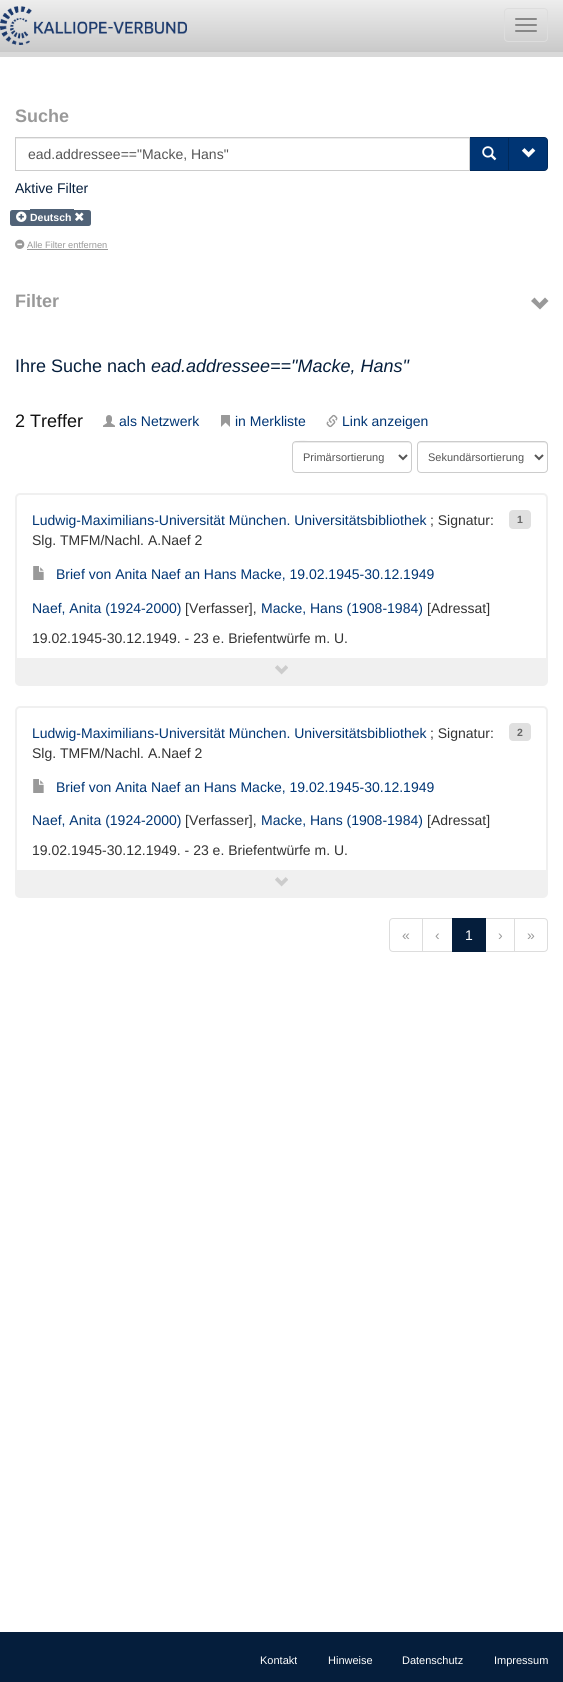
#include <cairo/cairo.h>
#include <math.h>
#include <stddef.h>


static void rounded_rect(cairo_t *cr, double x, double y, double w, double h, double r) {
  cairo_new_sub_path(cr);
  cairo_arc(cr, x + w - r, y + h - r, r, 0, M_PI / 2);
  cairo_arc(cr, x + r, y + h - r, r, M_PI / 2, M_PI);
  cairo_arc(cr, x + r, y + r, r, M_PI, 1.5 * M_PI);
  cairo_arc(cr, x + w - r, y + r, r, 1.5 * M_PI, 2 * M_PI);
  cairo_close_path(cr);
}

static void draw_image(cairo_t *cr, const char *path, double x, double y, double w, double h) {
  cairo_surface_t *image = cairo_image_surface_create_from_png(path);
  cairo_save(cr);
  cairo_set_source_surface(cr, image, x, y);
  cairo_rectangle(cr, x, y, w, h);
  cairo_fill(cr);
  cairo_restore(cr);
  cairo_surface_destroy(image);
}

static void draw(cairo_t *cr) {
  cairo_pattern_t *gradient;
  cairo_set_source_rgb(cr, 1, 1, 1);
  cairo_paint(cr);
  gradient = cairo_pattern_create_linear(282, 0, 282, 52);
  cairo_pattern_add_color_stop_rgba(gradient, 0, 237 / 255.0, 237 / 255.0, 237 / 255.0, 1);
  cairo_pattern_add_color_stop_rgba(gradient, 1, 201 / 255.0, 201 / 255.0, 201 / 255.0, 1);
  cairo_set_source(cr, gradient);
  cairo_pattern_destroy(gradient);
  cairo_rectangle(cr, 0, 0, 563, 52);
  cairo_fill(cr);
  cairo_set_source_rgb(cr, 217 / 255.0, 217 / 255.0, 217 / 255.0);
  cairo_rectangle(cr, 0, 52, 563, 5);
  cairo_fill(cr);
  draw_image(cr, "images/1.png", 0, 6, 187, 39);
  rounded_rect(cr, 504.5, 8.5, 43, 33, 3.5);
  cairo_set_source_rgb(cr, 221 / 255.0, 221 / 255.0, 221 / 255.0);
  cairo_set_line_width(cr, 1);
  cairo_stroke(cr);
  cairo_set_source_rgb(cr, 136 / 255.0, 136 / 255.0, 136 / 255.0);
  rounded_rect(cr, 515, 18, 22, 2, 1);
  cairo_fill(cr);
  rounded_rect(cr, 515, 24, 22, 2, 1);
  cairo_fill(cr);
  rounded_rect(cr, 515, 30, 22, 2, 1);
  cairo_fill(cr);
  cairo_set_source_rgb(cr, 236 / 255.0, 236 / 255.0, 236 / 255.0);
  cairo_rectangle(cr, 16, 138, 453, 1);
  cairo_fill(cr);
  cairo_set_source_rgb(cr, 0, 53 / 255.0, 116 / 255.0);
  cairo_rectangle(cr, 469.5, 137.5, 39, 33);
  cairo_fill_preserve(cr);
  cairo_set_source_rgb(cr, 0, 41 / 255.0, 90 / 255.0);
  cairo_stroke(cr);
  cairo_rectangle(cr, 15.5, 137.5, 454, 33);
  cairo_set_source_rgb(cr, 204 / 255.0, 204 / 255.0, 204 / 255.0);
  cairo_stroke(cr);
  draw_image(cr, "images/2.png", 482, 146, 15, 15);
  cairo_set_source_rgb(cr, 0, 53 / 255.0, 116 / 255.0);
  cairo_new_path(cr);
  cairo_move_to(cr, 508.5, 137.5);
  cairo_line_to(cr, 544, 137.5);
  cairo_curve_to(cr, 546, 137.5, 547.5, 139, 547.5, 141);
  cairo_line_to(cr, 547.5, 167);
  cairo_curve_to(cr, 547.5, 169, 546, 170.5, 544, 170.5);
  cairo_line_to(cr, 508.5, 170.5);
  cairo_close_path(cr);
  cairo_fill_preserve(cr);
  cairo_set_source_rgb(cr, 0, 41 / 255.0, 90 / 255.0);
  cairo_stroke(cr);
  draw_image(cr, "images/3.png", 521, 148, 15, 10);
  cairo_set_source_rgb(cr, 80 / 255.0, 98 / 255.0, 119 / 255.0);
  cairo_new_path(cr);
  cairo_move_to(cr, 12.5, 210);
  cairo_line_to(cr, 30, 210);
  cairo_line_to(cr, 30, 226);
  cairo_line_to(cr, 12.5, 226);
  cairo_curve_to(cr, 11, 226, 10, 225, 10, 223.5);
  cairo_line_to(cr, 10, 212.5);
  cairo_curve_to(cr, 10, 211, 11, 210, 12.5, 210);
  cairo_close_path(cr);
  cairo_fill(cr);
  cairo_rectangle(cr, 30, 209, 44, 17);
  cairo_fill(cr);
  cairo_new_path(cr);
  cairo_move_to(cr, 74, 210);
  cairo_line_to(cr, 88.5, 210);
  cairo_curve_to(cr, 90, 210, 91, 211, 91, 212.5);
  cairo_line_to(cr, 91, 223.5);
  cairo_curve_to(cr, 91, 225, 90, 226, 88.5, 226);
  cairo_line_to(cr, 74, 226);
  cairo_close_path(cr);
  cairo_fill(cr);
  draw_image(cr, "images/4.png", 16, 211, 11, 11);
  draw_image(cr, "images/5.png", 75, 212, 9, 9);
  draw_image(cr, "images/6.png", 15, 239, 10, 10);
  cairo_set_source_rgb(cr, 153 / 255.0, 153 / 255.0, 153 / 255.0);
  cairo_rectangle(cr, 27, 249, 81, 1);
  cairo_fill(cr);
  cairo_new_path(cr);
  cairo_move_to(cr, 531, 301);
  cairo_line_to(cr, 540, 309.5);
  cairo_line_to(cr, 548.5, 301);
  cairo_line_to(cr, 545, 297.5);
  cairo_line_to(cr, 539.5, 303);
  cairo_line_to(cr, 534.5, 297.5);
  cairo_close_path(cr);
  cairo_fill(cr);
  draw_image(cr, "images/7.png", 103, 415, 12, 12);
  draw_image(cr, "images/8.png", 221, 415, 9, 12);
  draw_image(cr, "images/9.png", 326, 414, 12, 14);
  cairo_set_source_rgb(cr, 236 / 255.0, 236 / 255.0, 236 / 255.0);
  cairo_new_path(cr);
  cairo_move_to(cr, 296, 443);
  cairo_line_to(cr, 408, 443);
  cairo_curve_to(cr, 410, 443, 411, 444, 411, 446);
  cairo_curve_to(cr, 411, 444, 410, 442, 408, 442);
  cairo_line_to(cr, 315, 442);
  cairo_curve_to(cr, 313, 442, 293, 437, 293, 446);
  cairo_curve_to(cr, 293, 444, 294, 443, 296, 443);
  cairo_close_path(cr);
  cairo_fill(cr);
  rounded_rect(cr, 292.5, 441.5, 119, 31, 3.5);
  cairo_set_source_rgb(cr, 204 / 255.0, 204 / 255.0, 204 / 255.0);
  cairo_stroke(cr);
  cairo_new_path(cr);
  cairo_move_to(cr, 399, 455);
  cairo_line_to(cr, 403, 459);
  cairo_line_to(cr, 407, 455);
  cairo_set_source_rgb(cr, 85 / 255.0, 85 / 255.0, 85 / 255.0);
  cairo_set_line_width(cr, 2);
  cairo_stroke(cr);
  cairo_set_source_rgb(cr, 236 / 255.0, 236 / 255.0, 236 / 255.0);
  cairo_new_path(cr);
  cairo_move_to(cr, 421, 443);
  cairo_line_to(cr, 544, 443);
  cairo_curve_to(cr, 546, 443, 547, 444, 547, 446);
  cairo_curve_to(cr, 547, 444, 547, 442, 545, 442);
  cairo_line_to(cr, 421, 442);
  cairo_curve_to(cr, 419, 442, 418, 444, 418, 446);
  cairo_curve_to(cr, 418, 444, 419, 443, 421, 443);
  cairo_close_path(cr);
  cairo_fill(cr);
  rounded_rect(cr, 417.5, 441.5, 130, 31, 3.5);
  cairo_set_source_rgb(cr, 204 / 255.0, 204 / 255.0, 204 / 255.0);
  cairo_set_line_width(cr, 1);
  cairo_stroke(cr);
  cairo_new_path(cr);
  cairo_move_to(cr, 535, 455);
  cairo_line_to(cr, 539, 459);
  cairo_line_to(cr, 543, 455);
  cairo_set_source_rgb(cr, 85 / 255.0, 85 / 255.0, 85 / 255.0);
  cairo_set_line_width(cr, 2);
  cairo_stroke(cr);
  rounded_rect(cr, 16, 494, 531, 191, 4);
  cairo_set_source_rgb(cr, 240 / 255.0, 240 / 255.0, 240 / 255.0);
  cairo_stroke(cr);
  cairo_set_source_rgb(cr, 224 / 255.0, 224 / 255.0, 224 / 255.0);
  rounded_rect(cr, 509, 510, 22, 19, 4);
  cairo_fill(cr);
  draw_image(cr, "images/10.png", 33, 566, 11, 14);
  cairo_set_source_rgb(cr, 240 / 255.0, 240 / 255.0, 240 / 255.0);
  cairo_rectangle(cr, 17, 658, 529, 26);
  cairo_fill(cr);
  draw_image(cr, "images/11.png", 275, 665, 13, 10);
  rounded_rect(cr, 16, 707, 531, 190, 4);
  cairo_stroke(cr);
  cairo_set_source_rgb(cr, 224 / 255.0, 224 / 255.0, 224 / 255.0);
  rounded_rect(cr, 509, 723, 22, 18, 4);
  cairo_fill(cr);
  draw_image(cr, "images/10.png", 33, 779, 11, 14);
  cairo_set_source_rgb(cr, 240 / 255.0, 240 / 255.0, 240 / 255.0);
  cairo_rectangle(cr, 17, 870, 529, 26);
  cairo_fill(cr);
  draw_image(cr, "images/11.png", 275, 877, 13, 10);
  cairo_new_path(cr);
  cairo_move_to(cr, 393, 918.5);
  cairo_line_to(cr, 422.5, 918.5);
  cairo_line_to(cr, 422.5, 951.5);
  cairo_line_to(cr, 393, 951.5);
  cairo_curve_to(cr, 391, 951.5, 389.5, 950, 389.5, 948);
  cairo_line_to(cr, 389.5, 922);
  cairo_curve_to(cr, 389.5, 920, 391, 918.5, 393, 918.5);
  cairo_close_path(cr);
  cairo_set_source_rgb(cr, 221 / 255.0, 221 / 255.0, 221 / 255.0);
  cairo_set_line_width(cr, 1);
  cairo_stroke(cr);
  cairo_rectangle(cr, 422.5, 918.5, 30, 33);
  cairo_stroke(cr);
  cairo_rectangle(cr, 485.5, 918.5, 29, 33);
  cairo_stroke(cr);
  cairo_set_source_rgb(cr, 5 / 255.0, 30 / 255.0, 60 / 255.0);
  cairo_rectangle(cr, 452, 918, 34, 34);
  cairo_fill(cr);
  cairo_set_source_rgb(cr, 1, 1, 1);
  cairo_new_path(cr);
  cairo_move_to(cr, 514.5, 918.5);
  cairo_line_to(cr, 544, 918.5);
  cairo_curve_to(cr, 546, 918.5, 547.5, 920, 547.5, 922);
  cairo_line_to(cr, 547.5, 948);
  cairo_curve_to(cr, 547.5, 950, 546, 951.5, 544, 951.5);
  cairo_line_to(cr, 514.5, 951.5);
  cairo_close_path(cr);
  cairo_fill_preserve(cr);
  cairo_set_source_rgb(cr, 221 / 255.0, 221 / 255.0, 221 / 255.0);
  cairo_stroke(cr);
  cairo_set_source_rgb(cr, 5 / 255.0, 30 / 255.0, 60 / 255.0);
  cairo_rectangle(cr, 0, 1632, 563, 50);
  cairo_fill(cr);
  cairo_select_font_face(cr, "Liberation Sans", CAIRO_FONT_SLANT_NORMAL, CAIRO_FONT_WEIGHT_BOLD);
  cairo_set_font_size(cr, 18);
  cairo_set_source_rgb(cr, 153 / 255.0, 153 / 255.0, 153 / 255.0);
  cairo_move_to(cr, 15, 122);
  cairo_show_text(cr, "Suche");
  cairo_select_font_face(cr, "Liberation Sans", CAIRO_FONT_SLANT_NORMAL, CAIRO_FONT_WEIGHT_NORMAL);
  cairo_set_font_size(cr, 14);
  cairo_set_source_rgb(cr, 85 / 255.0, 85 / 255.0, 85 / 255.0);
  cairo_move_to(cr, 28, 159);
  cairo_show_text(cr, "ead.addressee==\"Macke, Hans\"");
  cairo_set_source_rgb(cr, 5 / 255.0, 30 / 255.0, 60 / 255.0);
  cairo_move_to(cr, 15, 193);
  cairo_show_text(cr, "Aktive Filter");
  cairo_select_font_face(cr, "Liberation Sans", CAIRO_FONT_SLANT_NORMAL, CAIRO_FONT_WEIGHT_BOLD);
  cairo_set_font_size(cr, 10.5);
  cairo_set_source_rgb(cr, 1, 1, 1);
  cairo_move_to(cr, 30, 221);
  cairo_show_text(cr, "Deutsch");
  cairo_select_font_face(cr, "Liberation Sans", CAIRO_FONT_SLANT_NORMAL, CAIRO_FONT_WEIGHT_NORMAL);
  cairo_set_font_size(cr, 9.25);
  cairo_set_source_rgb(cr, 153 / 255.0, 153 / 255.0, 153 / 255.0);
  cairo_move_to(cr, 27, 248);
  cairo_show_text(cr, "Alle Filter entfernen");
  cairo_select_font_face(cr, "Liberation Sans", CAIRO_FONT_SLANT_NORMAL, CAIRO_FONT_WEIGHT_BOLD);
  cairo_set_font_size(cr, 18);
  cairo_move_to(cr, 15, 307);
  cairo_show_text(cr, "Filter");
  cairo_select_font_face(cr, "Liberation Sans", CAIRO_FONT_SLANT_NORMAL, CAIRO_FONT_WEIGHT_NORMAL);
  cairo_set_source_rgb(cr, 5 / 255.0, 30 / 255.0, 60 / 255.0);
  cairo_move_to(cr, 15, 372);
  cairo_show_text(cr, "Ihre Suche nach");
  cairo_select_font_face(cr, "Liberation Sans", CAIRO_FONT_SLANT_ITALIC, CAIRO_FONT_WEIGHT_NORMAL);
  cairo_move_to(cr, 151, 372);
  cairo_show_text(cr, "ead.addressee==\"Macke, Hans\"");
  cairo_select_font_face(cr, "Liberation Sans", CAIRO_FONT_SLANT_NORMAL, CAIRO_FONT_WEIGHT_NORMAL);
  cairo_set_source_rgb(cr, 17 / 255.0, 17 / 255.0, 17 / 255.0);
  cairo_move_to(cr, 15, 427);
  cairo_show_text(cr, "2 Treffer");
  cairo_set_font_size(cr, 14);
  cairo_set_source_rgb(cr, 0, 53 / 255.0, 116 / 255.0);
  cairo_move_to(cr, 119, 426);
  cairo_show_text(cr, "als Netzwerk");
  cairo_move_to(cr, 235, 426);
  cairo_show_text(cr, "in Merkliste");
  cairo_move_to(cr, 342, 426);
  cairo_show_text(cr, "Link anzeigen");
  cairo_set_font_size(cr, 11);
  cairo_set_source_rgb(cr, 85 / 255.0, 85 / 255.0, 85 / 255.0);
  cairo_move_to(cr, 303, 461);
  cairo_show_text(cr, "Primärsortierung");
  cairo_move_to(cr, 428, 461);
  cairo_show_text(cr, "Sekundärsortierung");
  cairo_set_font_size(cr, 14);
  cairo_set_source_rgb(cr, 0, 53 / 255.0, 116 / 255.0);
  cairo_move_to(cr, 32, 525);
  cairo_show_text(cr, "Ludwig-Maximilians-Universität München. Universitätsbibliothek");
  cairo_set_source_rgb(cr, 51 / 255.0, 51 / 255.0, 51 / 255.0);
  cairo_move_to(cr, 430, 525);
  cairo_show_text(cr, "; Signatur:");
  cairo_move_to(cr, 32, 545);
  cairo_show_text(cr, "Slg. TMFM/Nachl. A.Naef 2");
  cairo_select_font_face(cr, "Liberation Sans", CAIRO_FONT_SLANT_NORMAL, CAIRO_FONT_WEIGHT_BOLD);
  cairo_set_font_size(cr, 10.5);
  cairo_set_source_rgb(cr, 102 / 255.0, 102 / 255.0, 102 / 255.0);
  cairo_move_to(cr, 517, 523);
  cairo_show_text(cr, "1");
  cairo_select_font_face(cr, "Liberation Sans", CAIRO_FONT_SLANT_NORMAL, CAIRO_FONT_WEIGHT_NORMAL);
  cairo_set_font_size(cr, 14);
  cairo_set_source_rgb(cr, 0, 53 / 255.0, 116 / 255.0);
  cairo_move_to(cr, 56, 579);
  cairo_show_text(cr, "Brief von Anita Naef an Hans Macke, 19.02.1945-30.12.1949");
  cairo_move_to(cr, 32, 613);
  cairo_show_text(cr, "Naef, Anita (1924-2000)");
  cairo_set_source_rgb(cr, 51 / 255.0, 51 / 255.0, 51 / 255.0);
  cairo_move_to(cr, 185, 613);
  cairo_show_text(cr, "[Verfasser],");
  cairo_set_source_rgb(cr, 0, 53 / 255.0, 116 / 255.0);
  cairo_move_to(cr, 261, 613);
  cairo_show_text(cr, "Macke, Hans (1908-1984)");
  cairo_set_source_rgb(cr, 51 / 255.0, 51 / 255.0, 51 / 255.0);
  cairo_move_to(cr, 427, 613);
  cairo_show_text(cr, "[Adressat]");
  cairo_move_to(cr, 32, 643);
  cairo_show_text(cr, "19.02.1945-30.12.1949. - 23 e. Briefentwürfe m. U.");
  cairo_set_source_rgb(cr, 0, 53 / 255.0, 116 / 255.0);
  cairo_move_to(cr, 32, 738);
  cairo_show_text(cr, "Ludwig-Maximilians-Universität München. Universitätsbibliothek");
  cairo_set_source_rgb(cr, 51 / 255.0, 51 / 255.0, 51 / 255.0);
  cairo_move_to(cr, 430, 738);
  cairo_show_text(cr, "; Signatur:");
  cairo_move_to(cr, 32, 758);
  cairo_show_text(cr, "Slg. TMFM/Nachl. A.Naef 2");
  cairo_select_font_face(cr, "Liberation Sans", CAIRO_FONT_SLANT_NORMAL, CAIRO_FONT_WEIGHT_BOLD);
  cairo_set_font_size(cr, 10.5);
  cairo_set_source_rgb(cr, 102 / 255.0, 102 / 255.0, 102 / 255.0);
  cairo_move_to(cr, 517, 736);
  cairo_show_text(cr, "2");
  cairo_select_font_face(cr, "Liberation Sans", CAIRO_FONT_SLANT_NORMAL, CAIRO_FONT_WEIGHT_NORMAL);
  cairo_set_font_size(cr, 14);
  cairo_set_source_rgb(cr, 0, 53 / 255.0, 116 / 255.0);
  cairo_move_to(cr, 56, 792);
  cairo_show_text(cr, "Brief von Anita Naef an Hans Macke, 19.02.1945-30.12.1949");
  cairo_move_to(cr, 32, 825);
  cairo_show_text(cr, "Naef, Anita (1924-2000)");
  cairo_set_source_rgb(cr, 51 / 255.0, 51 / 255.0, 51 / 255.0);
  cairo_move_to(cr, 185, 825);
  cairo_show_text(cr, "[Verfasser],");
  cairo_set_source_rgb(cr, 0, 53 / 255.0, 116 / 255.0);
  cairo_move_to(cr, 261, 825);
  cairo_show_text(cr, "Macke, Hans (1908-1984)");
  cairo_set_source_rgb(cr, 51 / 255.0, 51 / 255.0, 51 / 255.0);
  cairo_move_to(cr, 427, 825);
  cairo_show_text(cr, "[Adressat]");
  cairo_move_to(cr, 32, 855);
  cairo_show_text(cr, "19.02.1945-30.12.1949. - 23 e. Briefentwürfe m. U.");
  cairo_set_source_rgb(cr, 153 / 255.0, 153 / 255.0, 153 / 255.0);
  cairo_move_to(cr, 402, 940);
  cairo_show_text(cr, "«");
  cairo_move_to(cr, 435, 940);
  cairo_show_text(cr, "‹");
  cairo_set_source_rgb(cr, 1, 1, 1);
  cairo_move_to(cr, 465, 940);
  cairo_show_text(cr, "1");
  cairo_set_source_rgb(cr, 153 / 255.0, 153 / 255.0, 153 / 255.0);
  cairo_move_to(cr, 498, 940);
  cairo_show_text(cr, "›");
  cairo_move_to(cr, 527, 940);
  cairo_show_text(cr, "»");
  cairo_set_font_size(cr, 11);
  cairo_set_source_rgb(cr, 1, 1, 1);
  cairo_move_to(cr, 260, 1664);
  cairo_show_text(cr, "Kontakt");
  cairo_move_to(cr, 328, 1664);
  cairo_show_text(cr, "Hinweise");
  cairo_move_to(cr, 402, 1664);
  cairo_show_text(cr, "Datenschutz");
  cairo_move_to(cr, 494, 1664);
  cairo_show_text(cr, "Impressum");
}

int main(void) {
  cairo_surface_t *surface = cairo_image_surface_create(CAIRO_FORMAT_RGB24, 563, 1682);
  cairo_t *cr = cairo_create(surface);
  cairo_font_options_t *options = cairo_font_options_create();
  cairo_font_options_set_hint_metrics(options, CAIRO_HINT_METRICS_OFF);
  cairo_font_options_set_hint_style(options, CAIRO_HINT_STYLE_NONE);
  cairo_set_font_options(cr, options);
  cairo_set_miter_limit(cr, 4);
  draw(cr);
  cairo_surface_write_to_png(surface, "out.png");
  cairo_font_options_destroy(options);
  cairo_destroy(cr);
  cairo_surface_destroy(surface);
  return 0;
}
